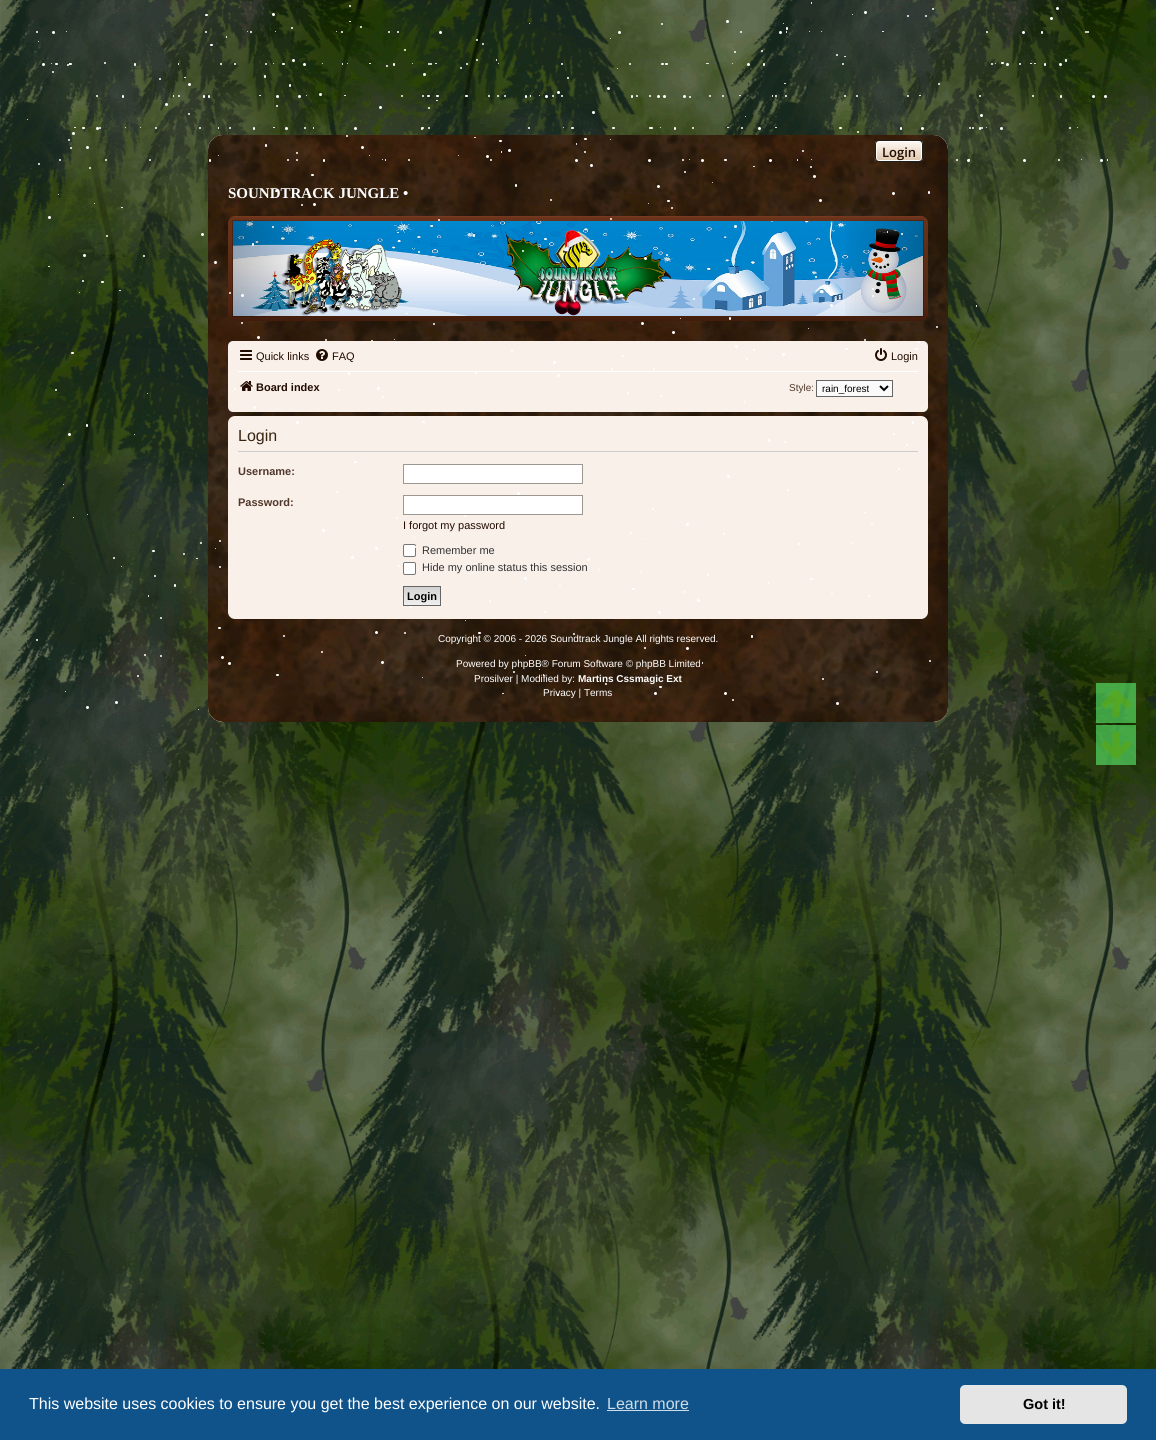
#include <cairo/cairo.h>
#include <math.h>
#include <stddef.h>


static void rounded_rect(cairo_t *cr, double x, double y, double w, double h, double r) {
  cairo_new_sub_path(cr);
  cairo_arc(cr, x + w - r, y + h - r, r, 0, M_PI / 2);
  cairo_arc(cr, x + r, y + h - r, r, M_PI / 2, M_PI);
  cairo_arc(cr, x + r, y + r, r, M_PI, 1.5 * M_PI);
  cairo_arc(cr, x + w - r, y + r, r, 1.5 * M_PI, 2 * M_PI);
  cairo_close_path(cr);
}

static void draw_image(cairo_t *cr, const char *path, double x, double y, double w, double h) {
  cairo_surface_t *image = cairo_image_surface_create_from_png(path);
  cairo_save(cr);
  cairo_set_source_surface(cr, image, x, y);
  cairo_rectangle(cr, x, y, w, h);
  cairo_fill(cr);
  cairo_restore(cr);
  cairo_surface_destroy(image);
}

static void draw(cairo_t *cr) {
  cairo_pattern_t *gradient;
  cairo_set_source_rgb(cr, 1, 1, 1);
  cairo_paint(cr);
  draw_image(cr, "images/1.png", 0, 744, 1156, 625);
  draw_image(cr, "images/2.png", 0, 0, 1156, 744);
  cairo_set_source_rgb(cr, 1, 1, 1);
  rounded_rect(cr, 811, 2, 1, 2, 0.5);
  cairo_fill(cr);
  cairo_arc(cr, 350, 6, 1, 0, 2 * M_PI);
  cairo_fill(cr);
  cairo_arc(cr, 933, 9, 1, 0, 2 * M_PI);
  cairo_fill(cr);
  cairo_arc(cr, 1057.5, 8.5, 1.5, 0, 2 * M_PI);
  cairo_fill(cr);
  cairo_arc(cr, 865.5, 12.5, 1.5, 0, 2 * M_PI);
  cairo_fill(cr);
  rounded_rect(cr, 205, 14, 3, 2, 1);
  cairo_fill(cr);
  cairo_arc(cr, 273.5, 14.5, 1.5, 0, 2 * M_PI);
  cairo_fill(cr);
  cairo_arc(cr, 852.5, 14.5, 0.5, 0, 2 * M_PI);
  cairo_fill(cr);
  cairo_arc(cr, 908, 16, 1, 0, 2 * M_PI);
  cairo_fill(cr);
  cairo_arc(cr, 926, 16, 1, 0, 2 * M_PI);
  cairo_fill(cr);
  cairo_arc(cr, 1051.5, 18.5, 1.5, 0, 2 * M_PI);
  cairo_fill(cr);
  rounded_rect(cr, 349, 21, 2, 1, 0.5);
  cairo_fill(cr);
  cairo_arc(cr, 727.5, 21.5, 1.5, 0, 2 * M_PI);
  cairo_fill(cr);
  cairo_arc(cr, 529.5, 23.5, 0.5, 0, 2 * M_PI);
  cairo_fill(cr);
  cairo_arc(cr, 662, 24, 1, 0, 2 * M_PI);
  cairo_fill(cr);
  cairo_arc(cr, 783.5, 23.5, 0.5, 0, 2 * M_PI);
  cairo_fill(cr);
  cairo_arc(cr, 292, 28, 1, 0, 2 * M_PI);
  cairo_fill(cr);
  cairo_arc(cr, 361, 27, 1, 0, 2 * M_PI);
  cairo_fill(cr);
  rounded_rect(cr, 786, 27, 2, 3, 1);
  cairo_fill(cr);
  cairo_arc(cr, 37, 32, 1, 0, 2 * M_PI);
  cairo_fill(cr);
  cairo_arc(cr, 53.5, 32.5, 1.5, 0, 2 * M_PI);
  cairo_fill(cr);
  cairo_arc(cr, 66.5, 31.5, 0.5, 0, 2 * M_PI);
  cairo_fill(cr);
  cairo_arc(cr, 206, 32, 1, 0, 2 * M_PI);
  cairo_fill(cr);
  cairo_arc(cr, 247.5, 31.5, 0.5, 0, 2 * M_PI);
  cairo_fill(cr);
  cairo_arc(cr, 251, 32, 1, 0, 2 * M_PI);
  cairo_fill(cr);
  cairo_arc(cr, 275.5, 31.5, 0.5, 0, 2 * M_PI);
  cairo_fill(cr);
  cairo_arc(cr, 336.5, 31.5, 0.5, 0, 2 * M_PI);
  cairo_fill(cr);
  cairo_arc(cr, 342, 32, 1, 0, 2 * M_PI);
  cairo_fill(cr);
  cairo_arc(cr, 389, 32, 1, 0, 2 * M_PI);
  cairo_fill(cr);
  cairo_arc(cr, 398, 32, 1, 0, 2 * M_PI);
  cairo_fill(cr);
  cairo_arc(cr, 440.5, 32.5, 1.5, 0, 2 * M_PI);
  cairo_fill(cr);
  cairo_arc(cr, 619.5, 32.5, 1.5, 0, 2 * M_PI);
  cairo_fill(cr);
  cairo_arc(cr, 741, 32, 1, 0, 2 * M_PI);
  cairo_fill(cr);
  cairo_arc(cr, 780.5, 32.5, 1.5, 0, 2 * M_PI);
  cairo_fill(cr);
  rounded_rect(cr, 786, 31, 1, 2, 0.5);
  cairo_fill(cr);
  cairo_arc(cr, 809.5, 31.5, 0.5, 0, 2 * M_PI);
  cairo_fill(cr);
  cairo_arc(cr, 821.5, 31.5, 0.5, 0, 2 * M_PI);
  cairo_fill(cr);
  rounded_rect(cr, 882, 31, 2, 1, 0.5);
  cairo_fill(cr);
  cairo_arc(cr, 987, 32, 1, 0, 2 * M_PI);
  cairo_fill(cr);
  cairo_arc(cr, 1023.5, 32.5, 1.5, 0, 2 * M_PI);
  cairo_fill(cr);
  rounded_rect(cr, 1041, 31, 2, 3, 1);
  cairo_fill(cr);
  cairo_arc(cr, 1086, 32, 1, 0, 2 * M_PI);
  cairo_fill(cr);
  cairo_arc(cr, 1088, 32, 1, 0, 2 * M_PI);
  cairo_fill(cr);
  rounded_rect(cr, 226, 36, 1, 2, 0.5);
  cairo_fill(cr);
  cairo_arc(cr, 610.5, 38.5, 0.5, 0, 2 * M_PI);
  cairo_fill(cr);
  cairo_arc(cr, 477, 40, 1, 0, 2 * M_PI);
  cairo_fill(cr);
  cairo_arc(cr, 38.5, 41.5, 0.5, 0, 2 * M_PI);
  cairo_fill(cr);
  rounded_rect(cr, 210, 44, 3, 2, 1);
  cairo_fill(cr);
  cairo_arc(cr, 483, 44, 1, 0, 2 * M_PI);
  cairo_fill(cr);
  cairo_arc(cr, 405, 50, 1, 0, 2 * M_PI);
  cairo_fill(cr);
  cairo_arc(cr, 735, 52, 1, 0, 2 * M_PI);
  cairo_fill(cr);
  cairo_arc(cr, 762, 51, 1, 0, 2 * M_PI);
  cairo_fill(cr);
  cairo_arc(cr, 837, 55, 1, 0, 2 * M_PI);
  cairo_fill(cr);
  rounded_rect(cr, 844, 56, 2, 1, 0.5);
  cairo_fill(cr);
  cairo_arc(cr, 293.5, 60.5, 1.5, 0, 2 * M_PI);
  cairo_fill(cr);
  cairo_arc(cr, 477, 60, 1, 0, 2 * M_PI);
  cairo_fill(cr);
  rounded_rect(cr, 496, 59, 1, 2, 0.5);
  cairo_fill(cr);
  rounded_rect(cr, 1065, 59, 2, 3, 1);
  cairo_fill(cr);
  cairo_arc(cr, 43.5, 64.5, 1.5, 0, 2 * M_PI);
  cairo_fill(cr);
  cairo_arc(cr, 51.5, 63.5, 0.5, 0, 2 * M_PI);
  cairo_fill(cr);
  rounded_rect(cr, 55, 63, 3, 2, 1);
  cairo_fill(cr);
  rounded_rect(cr, 69, 63, 3, 2, 1);
  cairo_fill(cr);
  cairo_arc(cr, 105, 63, 1, 0, 2 * M_PI);
  cairo_fill(cr);
  rounded_rect(cr, 1001, 62, 3, 2, 1);
  cairo_fill(cr);
  cairo_arc(cr, 68, 65, 1, 0, 2 * M_PI);
  cairo_fill(cr);
  rounded_rect(cr, 69, 63, 1, 2, 0.5);
  cairo_fill(cr);
  rounded_rect(cr, 134, 63, 2, 3, 1);
  cairo_fill(cr);
  rounded_rect(cr, 178, 63, 1, 2, 0.5);
  cairo_fill(cr);
  cairo_arc(cr, 221, 64, 1, 0, 2 * M_PI);
  cairo_fill(cr);
  cairo_arc(cr, 235, 64, 1, 0, 2 * M_PI);
  cairo_fill(cr);
  cairo_arc(cr, 266, 64, 1, 0, 2 * M_PI);
  cairo_fill(cr);
  cairo_arc(cr, 273.5, 63.5, 0.5, 0, 2 * M_PI);
  cairo_fill(cr);
  rounded_rect(cr, 282, 63, 3, 2, 1);
  cairo_fill(cr);
  cairo_arc(cr, 304.5, 64.5, 1.5, 0, 2 * M_PI);
  cairo_fill(cr);
  cairo_arc(cr, 322.5, 63.5, 0.5, 0, 2 * M_PI);
  cairo_fill(cr);
  rounded_rect(cr, 342, 63, 1, 2, 0.5);
  cairo_fill(cr);
  cairo_arc(cr, 347.5, 63.5, 0.5, 0, 2 * M_PI);
  cairo_fill(cr);
  rounded_rect(cr, 369, 63, 2, 1, 0.5);
  cairo_fill(cr);
  cairo_arc(cr, 387, 66, 1, 0, 2 * M_PI);
  cairo_fill(cr);
  rounded_rect(cr, 393, 63, 2, 3, 1);
  cairo_fill(cr);
  cairo_arc(cr, 412.5, 63.5, 0.5, 0, 2 * M_PI);
  cairo_fill(cr);
  cairo_arc(cr, 429, 64, 1, 0, 2 * M_PI);
  cairo_fill(cr);
  cairo_arc(cr, 431, 64, 1, 0, 2 * M_PI);
  cairo_fill(cr);
  rounded_rect(cr, 435, 63, 2, 1, 0.5);
  cairo_fill(cr);
  cairo_arc(cr, 467, 64, 1, 0, 2 * M_PI);
  cairo_fill(cr);
  cairo_arc(cr, 498.5, 63.5, 0.5, 0, 2 * M_PI);
  cairo_fill(cr);
  cairo_arc(cr, 562, 64, 1, 0, 2 * M_PI);
  cairo_fill(cr);
  cairo_arc(cr, 630, 64, 1, 0, 2 * M_PI);
  cairo_fill(cr);
  rounded_rect(cr, 661, 63, 3, 2, 1);
  cairo_fill(cr);
  rounded_rect(cr, 665, 63, 3, 2, 1);
  cairo_fill(cr);
  rounded_rect(cr, 706, 63, 2, 1, 0.5);
  cairo_fill(cr);
  cairo_arc(cr, 708.5, 63.5, 0.5, 0, 2 * M_PI);
  cairo_fill(cr);
  cairo_arc(cr, 732.5, 63.5, 0.5, 0, 2 * M_PI);
  cairo_fill(cr);
  cairo_arc(cr, 748.5, 64.5, 1.5, 0, 2 * M_PI);
  cairo_fill(cr);
  rounded_rect(cr, 763, 63, 2, 3, 1);
  cairo_fill(cr);
  cairo_arc(cr, 843, 64, 1, 0, 2 * M_PI);
  cairo_fill(cr);
  cairo_arc(cr, 992, 64, 1, 0, 2 * M_PI);
  cairo_fill(cr);
  cairo_arc(cr, 995.5, 63.5, 0.5, 0, 2 * M_PI);
  cairo_fill(cr);
  cairo_arc(cr, 1007.5, 64.5, 1.5, 0, 2 * M_PI);
  cairo_fill(cr);
  cairo_arc(cr, 1020, 64, 1, 0, 2 * M_PI);
  cairo_fill(cr);
  rounded_rect(cr, 1030, 63, 2, 1, 0.5);
  cairo_fill(cr);
  rounded_rect(cr, 1034, 63, 2, 1, 0.5);
  cairo_fill(cr);
  rounded_rect(cr, 1044, 63, 2, 3, 1);
  cairo_fill(cr);
  cairo_arc(cr, 1060.5, 64.5, 1.5, 0, 2 * M_PI);
  cairo_fill(cr);
  cairo_arc(cr, 461, 68, 1, 0, 2 * M_PI);
  cairo_fill(cr);
  cairo_arc(cr, 617.5, 68.5, 0.5, 0, 2 * M_PI);
  cairo_fill(cr);
  cairo_arc(cr, 53, 72, 1, 0, 2 * M_PI);
  cairo_fill(cr);
  cairo_arc(cr, 424.5, 74.5, 1.5, 0, 2 * M_PI);
  cairo_fill(cr);
  cairo_arc(cr, 160, 79, 1, 0, 2 * M_PI);
  cairo_fill(cr);
  rounded_rect(cr, 184, 77, 2, 1, 0.5);
  cairo_fill(cr);
  rounded_rect(cr, 264, 75, 2, 3, 1);
  cairo_fill(cr);
  cairo_arc(cr, 568, 78, 1, 0, 2 * M_PI);
  cairo_fill(cr);
  cairo_arc(cr, 189.5, 84.5, 1.5, 0, 2 * M_PI);
  cairo_fill(cr);
  rounded_rect(cr, 289, 84, 2, 3, 1);
  cairo_fill(cr);
  rounded_rect(cr, 784, 83, 2, 1, 0.5);
  cairo_fill(cr);
  cairo_arc(cr, 939, 84, 1, 0, 2 * M_PI);
  cairo_fill(cr);
  cairo_arc(cr, 608.5, 88.5, 1.5, 0, 2 * M_PI);
  cairo_fill(cr);
  cairo_arc(cr, 558.5, 92.5, 1.5, 0, 2 * M_PI);
  cairo_fill(cr);
  cairo_arc(cr, 97, 96, 1, 0, 2 * M_PI);
  cairo_fill(cr);
  rounded_rect(cr, 122, 95, 2, 3, 1);
  cairo_fill(cr);
  rounded_rect(cr, 173, 95, 1, 2, 0.5);
  cairo_fill(cr);
  cairo_arc(cr, 179, 96, 1, 0, 2 * M_PI);
  cairo_fill(cr);
  rounded_rect(cr, 203, 95, 2, 3, 1);
  cairo_fill(cr);
  rounded_rect(cr, 208, 95, 2, 3, 1);
  cairo_fill(cr);
  rounded_rect(cr, 259, 95, 2, 1, 0.5);
  cairo_fill(cr);
  cairo_arc(cr, 277.5, 96.5, 1.5, 0, 2 * M_PI);
  cairo_fill(cr);
  cairo_arc(cr, 299.5, 96.5, 1.5, 0, 2 * M_PI);
  cairo_fill(cr);
  cairo_arc(cr, 306.5, 95.5, 0.5, 0, 2 * M_PI);
  cairo_fill(cr);
  cairo_arc(cr, 320.5, 94.5, 1.5, 0, 2 * M_PI);
  cairo_fill(cr);
  rounded_rect(cr, 344, 95, 2, 1, 0.5);
  cairo_fill(cr);
  cairo_arc(cr, 402, 96, 1, 0, 2 * M_PI);
  cairo_fill(cr);
  cairo_arc(cr, 423, 96, 1, 0, 2 * M_PI);
  cairo_fill(cr);
  rounded_rect(cr, 427, 95, 3, 2, 1);
  cairo_fill(cr);
  rounded_rect(cr, 436, 95, 3, 2, 1);
  cairo_fill(cr);
  rounded_rect(cr, 465, 95, 3, 2, 1);
  cairo_fill(cr);
  cairo_arc(cr, 489, 96, 1, 0, 2 * M_PI);
  cairo_fill(cr);
  cairo_arc(cr, 498, 96, 1, 0, 2 * M_PI);
  cairo_fill(cr);
  cairo_arc(cr, 505, 96, 1, 0, 2 * M_PI);
  cairo_fill(cr);
  rounded_rect(cr, 525, 95, 2, 3, 1);
  cairo_fill(cr);
  rounded_rect(cr, 530, 95, 1, 2, 0.5);
  cairo_fill(cr);
  cairo_arc(cr, 539.5, 95.5, 0.5, 0, 2 * M_PI);
  cairo_fill(cr);
  cairo_arc(cr, 546.5, 96.5, 1.5, 0, 2 * M_PI);
  cairo_fill(cr);
  cairo_arc(cr, 553, 96, 1, 0, 2 * M_PI);
  cairo_fill(cr);
  cairo_arc(cr, 562, 96, 1, 0, 2 * M_PI);
  cairo_fill(cr);
  rounded_rect(cr, 631, 95, 2, 3, 1);
  cairo_fill(cr);
  cairo_arc(cr, 637, 96, 1, 0, 2 * M_PI);
  cairo_fill(cr);
  cairo_arc(cr, 650, 96, 1, 0, 2 * M_PI);
  cairo_fill(cr);
  cairo_arc(cr, 658.5, 96.5, 1.5, 0, 2 * M_PI);
  cairo_fill(cr);
  cairo_arc(cr, 664.5, 96.5, 1.5, 0, 2 * M_PI);
  cairo_fill(cr);
  cairo_arc(cr, 684.5, 96.5, 1.5, 0, 2 * M_PI);
  cairo_fill(cr);
  cairo_arc(cr, 690, 97, 1, 0, 2 * M_PI);
  cairo_fill(cr);
  cairo_arc(cr, 710, 96, 1, 0, 2 * M_PI);
  cairo_fill(cr);
  cairo_arc(cr, 723, 96, 1, 0, 2 * M_PI);
  cairo_fill(cr);
  rounded_rect(cr, 739, 95, 2, 1, 0.5);
  cairo_fill(cr);
  rounded_rect(cr, 772, 95, 1, 2, 0.5);
  cairo_fill(cr);
  cairo_arc(cr, 776, 96, 1, 0, 2 * M_PI);
  cairo_fill(cr);
  cairo_arc(cr, 786, 96, 1, 0, 2 * M_PI);
  cairo_fill(cr);
  cairo_arc(cr, 845, 96, 1, 0, 2 * M_PI);
  cairo_fill(cr);
  cairo_arc(cr, 857, 96, 1, 0, 2 * M_PI);
  cairo_fill(cr);
  cairo_arc(cr, 908, 96, 1, 0, 2 * M_PI);
  cairo_fill(cr);
  rounded_rect(cr, 919, 95, 2, 1, 0.5);
  cairo_fill(cr);
  cairo_arc(cr, 980, 96, 1, 0, 2 * M_PI);
  cairo_fill(cr);
  cairo_arc(cr, 1033, 96, 1, 0, 2 * M_PI);
  cairo_fill(cr);
  rounded_rect(cr, 1060, 95, 2, 3, 1);
  cairo_fill(cr);
  cairo_arc(cr, 1093.5, 96.5, 1.5, 0, 2 * M_PI);
  cairo_fill(cr);
  cairo_arc(cr, 1105.5, 96.5, 1.5, 0, 2 * M_PI);
  cairo_fill(cr);
  rounded_rect(cr, 436, 100, 2, 1, 0.5);
  cairo_fill(cr);
  cairo_arc(cr, 166.5, 104.5, 1.5, 0, 2 * M_PI);
  cairo_fill(cr);
  cairo_arc(cr, 277, 106, 1, 0, 2 * M_PI);
  cairo_fill(cr);
  cairo_arc(cr, 380.5, 107.5, 1.5, 0, 2 * M_PI);
  cairo_fill(cr);
  cairo_arc(cr, 429, 108, 1, 0, 2 * M_PI);
  cairo_fill(cr);
  cairo_arc(cr, 189, 114, 1, 0, 2 * M_PI);
  cairo_fill(cr);
  cairo_arc(cr, 593.5, 112.5, 1.5, 0, 2 * M_PI);
  cairo_fill(cr);
  cairo_arc(cr, 745.5, 116.5, 0.5, 0, 2 * M_PI);
  cairo_fill(cr);
  cairo_arc(cr, 981.5, 115.5, 1.5, 0, 2 * M_PI);
  cairo_fill(cr);
  cairo_arc(cr, 27.5, 119.5, 0.5, 0, 2 * M_PI);
  cairo_fill(cr);
  rounded_rect(cr, 74, 127, 2, 1, 0.5);
  cairo_fill(cr);
  rounded_rect(cr, 82, 127, 3, 2, 1);
  cairo_fill(cr);
  cairo_arc(cr, 97.5, 128.5, 1.5, 0, 2 * M_PI);
  cairo_fill(cr);
  cairo_arc(cr, 100, 128, 1, 0, 2 * M_PI);
  cairo_fill(cr);
  cairo_arc(cr, 125.5, 127.5, 0.5, 0, 2 * M_PI);
  cairo_fill(cr);
  cairo_arc(cr, 140.5, 127.5, 0.5, 0, 2 * M_PI);
  cairo_fill(cr);
  cairo_arc(cr, 156, 128, 1, 0, 2 * M_PI);
  cairo_fill(cr);
  cairo_arc(cr, 200, 128, 1, 0, 2 * M_PI);
  cairo_fill(cr);
  rounded_rect(cr, 218, 127, 1, 2, 0.5);
  cairo_fill(cr);
  cairo_arc(cr, 230, 128, 1, 0, 2 * M_PI);
  cairo_fill(cr);
  rounded_rect(cr, 253, 127, 2, 3, 1);
  cairo_fill(cr);
  rounded_rect(cr, 273, 127, 2, 1, 0.5);
  cairo_fill(cr);
  cairo_arc(cr, 286.5, 128.5, 1.5, 0, 2 * M_PI);
  cairo_fill(cr);
  cairo_arc(cr, 305, 128, 1, 0, 2 * M_PI);
  cairo_fill(cr);
  rounded_rect(cr, 313, 127, 1, 2, 0.5);
  cairo_fill(cr);
  cairo_arc(cr, 355.5, 128.5, 1.5, 0, 2 * M_PI);
  cairo_fill(cr);
  rounded_rect(cr, 421, 127, 2, 3, 1);
  cairo_fill(cr);
  cairo_arc(cr, 423, 128, 1, 0, 2 * M_PI);
  cairo_fill(cr);
  cairo_arc(cr, 429, 128, 1, 0, 2 * M_PI);
  cairo_fill(cr);
  cairo_arc(cr, 529, 128, 1, 0, 2 * M_PI);
  cairo_fill(cr);
  cairo_arc(cr, 563.5, 127.5, 0.5, 0, 2 * M_PI);
  cairo_fill(cr);
  cairo_arc(cr, 573, 128, 1, 0, 2 * M_PI);
  cairo_fill(cr);
  cairo_arc(cr, 572, 128, 1, 0, 2 * M_PI);
  cairo_fill(cr);
  rounded_rect(cr, 612, 127, 3, 2, 1);
  cairo_fill(cr);
  rounded_rect(cr, 650, 127, 3, 2, 1);
  cairo_fill(cr);
  cairo_arc(cr, 650, 128, 1, 0, 2 * M_PI);
  cairo_fill(cr);
  cairo_arc(cr, 660.5, 127.5, 0.5, 0, 2 * M_PI);
  cairo_fill(cr);
  rounded_rect(cr, 674, 127, 2, 3, 1);
  cairo_fill(cr);
  cairo_arc(cr, 693, 128, 1, 0, 2 * M_PI);
  cairo_fill(cr);
  rounded_rect(cr, 727, 127, 2, 1, 0.5);
  cairo_fill(cr);
  cairo_arc(cr, 742, 128, 1, 0, 2 * M_PI);
  cairo_fill(cr);
  cairo_arc(cr, 759.5, 128.5, 1.5, 0, 2 * M_PI);
  cairo_fill(cr);
  rounded_rect(cr, 775, 127, 2, 1, 0.5);
  cairo_fill(cr);
  rounded_rect(cr, 839, 127, 3, 2, 1);
  cairo_fill(cr);
  rounded_rect(cr, 900, 127, 2, 3, 1);
  cairo_fill(cr);
  cairo_arc(cr, 922.5, 128.5, 1.5, 0, 2 * M_PI);
  cairo_fill(cr);
  cairo_arc(cr, 970, 128, 1, 0, 2 * M_PI);
  cairo_fill(cr);
  cairo_arc(cr, 973, 128, 1, 0, 2 * M_PI);
  cairo_fill(cr);
  rounded_rect(cr, 979, 127, 2, 3, 1);
  cairo_fill(cr);
  cairo_arc(cr, 982, 128, 1, 0, 2 * M_PI);
  cairo_fill(cr);
  cairo_arc(cr, 986.5, 127.5, 0.5, 0, 2 * M_PI);
  cairo_fill(cr);
  cairo_arc(cr, 1001.5, 128.5, 1.5, 0, 2 * M_PI);
  cairo_fill(cr);
  cairo_arc(cr, 1070, 128, 1, 0, 2 * M_PI);
  cairo_fill(cr);
  cairo_arc(cr, 1077.5, 127.5, 0.5, 0, 2 * M_PI);
  cairo_fill(cr);
  cairo_arc(cr, 73.5, 133.5, 1.5, 0, 2 * M_PI);
  cairo_fill(cr);
  cairo_arc(cr, 858, 132, 1, 0, 2 * M_PI);
  cairo_fill(cr);
  rounded_rect(cr, 208, 135, 740, 587, 15);
  cairo_fill(cr);
  draw_image(cr, "images/3.png", 208, 135, 740, 587);
  cairo_arc(cr, 347, 136, 1, 0, 2 * M_PI);
  cairo_fill(cr);
  rounded_rect(cr, 474, 137, 2, 1, 0.5);
  cairo_fill(cr);
  cairo_arc(cr, 69, 140, 1, 0, 2 * M_PI);
  cairo_fill(cr);
  rounded_rect(cr, 584, 138, 3, 2, 1);
  cairo_fill(cr);
  cairo_arc(cr, 610.5, 139.5, 0.5, 0, 2 * M_PI);
  cairo_fill(cr);
  rounded_rect(cr, 499, 140, 3, 2, 1);
  cairo_fill(cr);
  rounded_rect(cr, 265, 144, 2, 3, 1);
  cairo_fill(cr);
  rounded_rect(cr, 576, 143, 1, 2, 0.5);
  cairo_fill(cr);
  cairo_arc(cr, 71, 148, 1, 0, 2 * M_PI);
  cairo_fill(cr);
  cairo_arc(cr, 87.5, 147.5, 1.5, 0, 2 * M_PI);
  cairo_fill(cr);
  cairo_arc(cr, 362.5, 147.5, 1.5, 0, 2 * M_PI);
  cairo_fill(cr);
  cairo_save(cr);
  rounded_rect(cr, 875, 140, 48, 22, 4);
  cairo_clip(cr);
  gradient = cairo_pattern_create_linear(899, 141, 899, 161);
  cairo_pattern_add_color_stop_rgba(gradient, 0, 1, 250 / 255.0, 245 / 255.0, 1);
  cairo_pattern_add_color_stop_rgba(gradient, 1, 222 / 255.0, 198 / 255.0, 173 / 255.0, 1);
  cairo_set_source(cr, gradient);
  cairo_pattern_destroy(gradient);
  cairo_rectangle(cr, 875, 141, 48, 20);
  cairo_fill(cr);
  cairo_restore(cr);
  rounded_rect(cr, 876.5, 141.5, 45, 19, 2.5);
  cairo_set_line_width(cr, 1);
  cairo_stroke(cr);
  rounded_rect(cr, 875.5, 140.5, 47, 21, 3.5);
  cairo_set_source_rgb(cr, 30 / 255.0, 30 / 255.0, 30 / 255.0);
  cairo_stroke(cr);
  gradient = cairo_pattern_create_linear(578, 216, 578, 321);
  cairo_pattern_add_color_stop_rgba(gradient, 0, 120 / 255.0, 59 / 255.0, 31 / 255.0, 1);
  cairo_pattern_add_color_stop_rgba(gradient, 0.02, 104 / 255.0, 51 / 255.0, 26 / 255.0, 1);
  cairo_pattern_add_color_stop_rgba(gradient, 0.88, 80 / 255.0, 37 / 255.0, 16 / 255.0, 1);
  cairo_pattern_add_color_stop_rgba(gradient, 1, 65 / 255.0, 29 / 255.0, 11 / 255.0, 1);
  cairo_set_source(cr, gradient);
  cairo_pattern_destroy(gradient);
  rounded_rect(cr, 228, 216, 700, 105, 7);
  cairo_fill(cr);
  draw_image(cr, "images/4.png", 233, 221, 690, 95);
  gradient = cairo_pattern_create_linear(232, 269, 320, 269);
  cairo_pattern_add_color_stop_rgba(gradient, 0, 0, 0, 0, 0.25);
  cairo_pattern_add_color_stop_rgba(gradient, 1, 0, 0, 0, 0);
  cairo_set_source(cr, gradient);
  cairo_pattern_destroy(gradient);
  cairo_rectangle(cr, 232, 220, 80, 97);
  cairo_fill(cr);
  gradient = cairo_pattern_create_linear(837, 269, 924, 269);
  cairo_pattern_add_color_stop_rgba(gradient, 0, 0, 0, 0, 0);
  cairo_pattern_add_color_stop_rgba(gradient, 1, 0, 0, 0, 0.25);
  cairo_set_source(cr, gradient);
  cairo_pattern_destroy(gradient);
  cairo_rectangle(cr, 845, 220, 79, 97);
  cairo_fill(cr);
  cairo_set_source_rgb(cr, 249 / 255.0, 240 / 255.0, 234 / 255.0);
  rounded_rect(cr, 228, 341, 700, 71, 5);
  cairo_fill(cr);
  draw_image(cr, "images/5.png", 240, 350, 12, 10);
  draw_image(cr, "images/6.png", 316, 349, 12, 12);
  draw_image(cr, "images/7.png", 875, 348, 12, 13);
  cairo_set_source_rgb(cr, 1, 1, 1);
  cairo_rectangle(cr, 238, 371, 680, 1);
  cairo_fill(cr);
  draw_image(cr, "images/8.png", 240, 381, 13, 10);
  cairo_set_source_rgb(cr, 250 / 255.0, 250 / 255.0, 250 / 255.0);
  cairo_rectangle(cr, 816.5, 380.5, 76, 16);
  cairo_fill_preserve(cr);
  cairo_set_source_rgb(cr, 102 / 255.0, 102 / 255.0, 102 / 255.0);
  cairo_stroke(cr);
  cairo_new_path(cr);
  cairo_move_to(cr, 880, 386);
  cairo_line_to(cr, 884, 390);
  cairo_line_to(cr, 888, 386);
  cairo_set_source_rgb(cr, 0, 0, 0);
  cairo_set_line_width(cr, 2);
  cairo_stroke(cr);
  cairo_set_source_rgb(cr, 249 / 255.0, 240 / 255.0, 234 / 255.0);
  rounded_rect(cr, 228, 416, 700, 203, 7);
  cairo_fill(cr);
  cairo_set_source_rgb(cr, 204 / 255.0, 204 / 255.0, 204 / 255.0);
  cairo_rectangle(cr, 238, 451, 680, 1);
  cairo_fill(cr);
  cairo_set_source_rgb(cr, 1, 1, 1);
  cairo_rectangle(cr, 403.5, 464.5, 179, 19);
  cairo_fill_preserve(cr);
  cairo_set_source_rgb(cr, 157 / 255.0, 151 / 255.0, 145 / 255.0);
  cairo_set_line_width(cr, 1);
  cairo_stroke(cr);
  cairo_set_source_rgb(cr, 1, 1, 1);
  cairo_rectangle(cr, 403.5, 495.5, 179, 19);
  cairo_fill_preserve(cr);
  cairo_set_source_rgb(cr, 157 / 255.0, 151 / 255.0, 145 / 255.0);
  cairo_stroke(cr);
  cairo_set_source_rgb(cr, 1, 1, 1);
  rounded_rect(cr, 403.5, 544.5, 12, 12, 1.5);
  cairo_fill_preserve(cr);
  cairo_set_source_rgb(cr, 118 / 255.0, 118 / 255.0, 118 / 255.0);
  cairo_stroke(cr);
  cairo_set_source_rgb(cr, 1, 1, 1);
  rounded_rect(cr, 403.5, 562.5, 12, 12, 1.5);
  cairo_fill_preserve(cr);
  cairo_set_source_rgb(cr, 118 / 255.0, 118 / 255.0, 118 / 255.0);
  cairo_stroke(cr);
  gradient = cairo_pattern_create_linear(422, 587, 422, 605);
  cairo_pattern_add_color_stop_rgba(gradient, 0, 210 / 255.0, 210 / 255.0, 210 / 255.0, 1);
  cairo_pattern_add_color_stop_rgba(gradient, 1, 239 / 255.0, 239 / 255.0, 239 / 255.0, 1);
  cairo_set_source(cr, gradient);
  cairo_pattern_destroy(gradient);
  cairo_rectangle(cr, 404, 587, 36, 18);
  cairo_fill(cr);
  cairo_rectangle(cr, 403.5, 586.5, 37, 19);
  cairo_set_source_rgb(cr, 102 / 255.0, 102 / 255.0, 102 / 255.0);
  cairo_stroke(cr);
  cairo_set_source_rgb(cr, 1, 1, 1);
  cairo_arc(cr, 297, 153, 1, 0, 2 * M_PI);
  cairo_fill(cr);
  rounded_rect(cr, 501, 151, 1, 2, 0.5);
  cairo_fill(cr);
  cairo_arc(cr, 509.5, 150.5, 1.5, 0, 2 * M_PI);
  cairo_fill(cr);
  cairo_arc(cr, 585, 152, 1, 0, 2 * M_PI);
  cairo_fill(cr);
  cairo_arc(cr, 803, 151, 1, 0, 2 * M_PI);
  cairo_fill(cr);
  cairo_arc(cr, 218.5, 155.5, 0.5, 0, 2 * M_PI);
  cairo_fill(cr);
  cairo_arc(cr, 369.5, 155.5, 0.5, 0, 2 * M_PI);
  cairo_fill(cr);
  cairo_arc(cr, 458.5, 155.5, 0.5, 0, 2 * M_PI);
  cairo_fill(cr);
  cairo_arc(cr, 487.5, 156.5, 1.5, 0, 2 * M_PI);
  cairo_fill(cr);
  cairo_arc(cr, 60, 160, 1, 0, 2 * M_PI);
  cairo_fill(cr);
  cairo_arc(cr, 106, 160, 1, 0, 2 * M_PI);
  cairo_fill(cr);
  cairo_arc(cr, 150, 160, 1, 0, 2 * M_PI);
  cairo_fill(cr);
  rounded_rect(cr, 209, 159, 2, 3, 1);
  cairo_fill(cr);
  cairo_arc(cr, 288, 160, 1, 0, 2 * M_PI);
  cairo_fill(cr);
  cairo_arc(cr, 297, 160, 1, 0, 2 * M_PI);
  cairo_fill(cr);
  rounded_rect(cr, 323, 159, 2, 3, 1);
  cairo_fill(cr);
  cairo_arc(cr, 382.5, 159.5, 0.5, 0, 2 * M_PI);
  cairo_fill(cr);
  rounded_rect(cr, 385, 159, 1, 2, 0.5);
  cairo_fill(cr);
  cairo_arc(cr, 409, 160, 1, 0, 2 * M_PI);
  cairo_fill(cr);
  cairo_arc(cr, 491, 160, 1, 0, 2 * M_PI);
  cairo_fill(cr);
  cairo_arc(cr, 576.5, 160.5, 1.5, 0, 2 * M_PI);
  cairo_fill(cr);
  cairo_arc(cr, 649.5, 160.5, 1.5, 0, 2 * M_PI);
  cairo_fill(cr);
  cairo_arc(cr, 683, 160, 1, 0, 2 * M_PI);
  cairo_fill(cr);
  cairo_arc(cr, 689.5, 159.5, 0.5, 0, 2 * M_PI);
  cairo_fill(cr);
  cairo_arc(cr, 702.5, 160.5, 1.5, 0, 2 * M_PI);
  cairo_fill(cr);
  rounded_rect(cr, 724, 159, 3, 2, 1);
  cairo_fill(cr);
  cairo_arc(cr, 770.5, 160.5, 1.5, 0, 2 * M_PI);
  cairo_fill(cr);
  rounded_rect(cr, 797, 159, 1, 2, 0.5);
  cairo_fill(cr);
  cairo_arc(cr, 811.5, 159.5, 0.5, 0, 2 * M_PI);
  cairo_fill(cr);
  cairo_arc(cr, 957, 160, 1, 0, 2 * M_PI);
  cairo_fill(cr);
  cairo_arc(cr, 968.5, 160.5, 1.5, 0, 2 * M_PI);
  cairo_fill(cr);
  cairo_arc(cr, 969, 160, 1, 0, 2 * M_PI);
  cairo_fill(cr);
  cairo_arc(cr, 1024.5, 160.5, 1.5, 0, 2 * M_PI);
  cairo_fill(cr);
  cairo_arc(cr, 1059, 160, 1, 0, 2 * M_PI);
  cairo_fill(cr);
  cairo_arc(cr, 1081.5, 159.5, 0.5, 0, 2 * M_PI);
  cairo_fill(cr);
  cairo_arc(cr, 1101.5, 160.5, 1.5, 0, 2 * M_PI);
  cairo_fill(cr);
  rounded_rect(cr, 1107, 159, 1, 2, 0.5);
  cairo_fill(cr);
  cairo_arc(cr, 39, 164, 1, 0, 2 * M_PI);
  cairo_fill(cr);
  cairo_arc(cr, 90, 168, 1, 0, 2 * M_PI);
  cairo_fill(cr);
  cairo_arc(cr, 591.5, 165.5, 1.5, 0, 2 * M_PI);
  cairo_fill(cr);
  rounded_rect(cr, 753, 166, 2, 1, 0.5);
  cairo_fill(cr);
  cairo_arc(cr, 811, 167, 1, 0, 2 * M_PI);
  cairo_fill(cr);
  cairo_arc(cr, 685, 172, 1, 0, 2 * M_PI);
  cairo_fill(cr);
  rounded_rect(cr, 311, 174, 3, 2, 1);
  cairo_fill(cr);
  cairo_arc(cr, 814.5, 176.5, 1.5, 0, 2 * M_PI);
  cairo_fill(cr);
  cairo_arc(cr, 712.5, 182.5, 0.5, 0, 2 * M_PI);
  cairo_fill(cr);
  rounded_rect(cr, 515, 184, 2, 3, 1);
  cairo_fill(cr);
  cairo_arc(cr, 658.5, 186.5, 1.5, 0, 2 * M_PI);
  cairo_fill(cr);
  cairo_arc(cr, 58.5, 194.5, 0.5, 0, 2 * M_PI);
  cairo_fill(cr);
  rounded_rect(cr, 275, 190, 3, 2, 1);
  cairo_fill(cr);
  cairo_arc(cr, 370, 195, 1, 0, 2 * M_PI);
  cairo_fill(cr);
  cairo_arc(cr, 893.5, 193.5, 1.5, 0, 2 * M_PI);
  cairo_fill(cr);
  rounded_rect(cr, 928, 191, 2, 3, 1);
  cairo_fill(cr);
  cairo_arc(cr, 352, 197, 1, 0, 2 * M_PI);
  cairo_fill(cr);
  cairo_arc(cr, 551, 200, 1, 0, 2 * M_PI);
  cairo_fill(cr);
  rounded_rect(cr, 667, 200, 3, 2, 1);
  cairo_fill(cr);
  cairo_arc(cr, 820.5, 200.5, 1.5, 0, 2 * M_PI);
  cairo_fill(cr);
  cairo_arc(cr, 94.5, 203.5, 0.5, 0, 2 * M_PI);
  cairo_fill(cr);
  cairo_arc(cr, 314.5, 204.5, 1.5, 0, 2 * M_PI);
  cairo_fill(cr);
  cairo_arc(cr, 648.5, 203.5, 0.5, 0, 2 * M_PI);
  cairo_fill(cr);
  cairo_arc(cr, 302, 205, 1, 0, 2 * M_PI);
  cairo_fill(cr);
  rounded_rect(cr, 121, 207, 2, 1, 0.5);
  cairo_fill(cr);
  cairo_arc(cr, 672, 208, 1, 0, 2 * M_PI);
  cairo_fill(cr);
  cairo_arc(cr, 49.5, 217.5, 1.5, 0, 2 * M_PI);
  cairo_fill(cr);
  cairo_arc(cr, 439, 220, 1, 0, 2 * M_PI);
  cairo_fill(cr);
  cairo_arc(cr, 611, 219, 1, 0, 2 * M_PI);
  cairo_fill(cr);
  cairo_arc(cr, 273, 227, 1, 0, 2 * M_PI);
  cairo_fill(cr);
  cairo_arc(cr, 735.5, 226.5, 1.5, 0, 2 * M_PI);
  cairo_fill(cr);
  rounded_rect(cr, 397, 232, 2, 1, 0.5);
  cairo_fill(cr);
  rounded_rect(cr, 887, 231, 1, 2, 0.5);
  cairo_fill(cr);
  cairo_arc(cr, 107, 236, 1, 0, 2 * M_PI);
  cairo_fill(cr);
  cairo_arc(cr, 202.5, 234.5, 1.5, 0, 2 * M_PI);
  cairo_fill(cr);
  rounded_rect(cr, 473, 234, 2, 3, 1);
  cairo_fill(cr);
  cairo_arc(cr, 902, 234, 1, 0, 2 * M_PI);
  cairo_fill(cr);
  rounded_rect(cr, 544, 238, 3, 2, 1);
  cairo_fill(cr);
  rounded_rect(cr, 252, 243, 2, 3, 1);
  cairo_fill(cr);
  cairo_arc(cr, 419, 252, 1, 0, 2 * M_PI);
  cairo_fill(cr);
  cairo_arc(cr, 523, 251, 1, 0, 2 * M_PI);
  cairo_fill(cr);
  cairo_arc(cr, 612, 252, 1, 0, 2 * M_PI);
  cairo_fill(cr);
  cairo_arc(cr, 84.5, 255.5, 1.5, 0, 2 * M_PI);
  cairo_fill(cr);
  cairo_arc(cr, 144, 256, 1, 0, 2 * M_PI);
  cairo_fill(cr);
  cairo_arc(cr, 630, 254, 1, 0, 2 * M_PI);
  cairo_fill(cr);
  cairo_arc(cr, 667, 255, 1, 0, 2 * M_PI);
  cairo_fill(cr);
  cairo_arc(cr, 645.5, 258.5, 1.5, 0, 2 * M_PI);
  cairo_fill(cr);
  cairo_arc(cr, 215.5, 262.5, 1.5, 0, 2 * M_PI);
  cairo_fill(cr);
  rounded_rect(cr, 48, 266, 2, 1, 0.5);
  cairo_fill(cr);
  cairo_arc(cr, 816, 277, 1, 0, 2 * M_PI);
  cairo_fill(cr);
  rounded_rect(cr, 287, 278, 3, 2, 1);
  cairo_fill(cr);
  cairo_arc(cr, 83, 281, 1, 0, 2 * M_PI);
  cairo_fill(cr);
  rounded_rect(cr, 101, 281, 3, 2, 1);
  cairo_fill(cr);
  cairo_arc(cr, 873, 289, 1, 0, 2 * M_PI);
  cairo_fill(cr);
  rounded_rect(cr, 119, 290, 2, 1, 0.5);
  cairo_fill(cr);
  cairo_arc(cr, 79.5, 292.5, 0.5, 0, 2 * M_PI);
  cairo_fill(cr);
  cairo_arc(cr, 230, 293, 1, 0, 2 * M_PI);
  cairo_fill(cr);
  cairo_arc(cr, 242.5, 295.5, 1.5, 0, 2 * M_PI);
  cairo_fill(cr);
  cairo_arc(cr, 873, 296, 1, 0, 2 * M_PI);
  cairo_fill(cr);
  cairo_arc(cr, 271.5, 298.5, 0.5, 0, 2 * M_PI);
  cairo_fill(cr);
  cairo_arc(cr, 694, 299, 1, 0, 2 * M_PI);
  cairo_fill(cr);
  rounded_rect(cr, 547, 300, 2, 3, 1);
  cairo_fill(cr);
  cairo_arc(cr, 812.5, 300.5, 0.5, 0, 2 * M_PI);
  cairo_fill(cr);
  cairo_arc(cr, 831.5, 305.5, 1.5, 0, 2 * M_PI);
  cairo_fill(cr);
  rounded_rect(cr, 976, 305, 1, 2, 0.5);
  cairo_fill(cr);
  rounded_rect(cr, 406, 313, 2, 1, 0.5);
  cairo_fill(cr);
  cairo_arc(cr, 680.5, 318.5, 0.5, 0, 2 * M_PI);
  cairo_fill(cr);
  rounded_rect(cr, 729, 317, 2, 3, 1);
  cairo_fill(cr);
  cairo_arc(cr, 242, 323, 1, 0, 2 * M_PI);
  cairo_fill(cr);
  cairo_arc(cr, 434, 324, 1, 0, 2 * M_PI);
  cairo_fill(cr);
  cairo_arc(cr, 642.5, 323.5, 1.5, 0, 2 * M_PI);
  cairo_fill(cr);
  cairo_arc(cr, 937, 327, 1, 0, 2 * M_PI);
  cairo_fill(cr);
  cairo_arc(cr, 808.5, 328.5, 0.5, 0, 2 * M_PI);
  cairo_fill(cr);
  cairo_arc(cr, 673.5, 332.5, 1.5, 0, 2 * M_PI);
  cairo_fill(cr);
  cairo_arc(cr, 258.5, 337.5, 1.5, 0, 2 * M_PI);
  cairo_fill(cr);
  cairo_arc(cr, 326, 340, 1, 0, 2 * M_PI);
  cairo_fill(cr);
  cairo_arc(cr, 372, 341, 1, 0, 2 * M_PI);
  cairo_fill(cr);
  cairo_arc(cr, 394.5, 339.5, 0.5, 0, 2 * M_PI);
  cairo_fill(cr);
  cairo_arc(cr, 865, 340, 1, 0, 2 * M_PI);
  cairo_fill(cr);
  cairo_arc(cr, 919, 342, 1, 0, 2 * M_PI);
  cairo_fill(cr);
  cairo_arc(cr, 736.5, 346.5, 1.5, 0, 2 * M_PI);
  cairo_fill(cr);
  cairo_arc(cr, 884.5, 346.5, 0.5, 0, 2 * M_PI);
  cairo_fill(cr);
  cairo_arc(cr, 548.5, 347.5, 0.5, 0, 2 * M_PI);
  cairo_fill(cr);
  cairo_arc(cr, 512, 351, 1, 0, 2 * M_PI);
  cairo_fill(cr);
  cairo_arc(cr, 754, 350, 1, 0, 2 * M_PI);
  cairo_fill(cr);
  rounded_rect(cr, 845, 348, 3, 2, 1);
  cairo_fill(cr);
  rounded_rect(cr, 915, 348, 3, 2, 1);
  cairo_fill(cr);
  rounded_rect(cr, 71, 352, 3, 2, 1);
  cairo_fill(cr);
  cairo_arc(cr, 623, 356, 1, 0, 2 * M_PI);
  cairo_fill(cr);
  cairo_arc(cr, 783.5, 354.5, 1.5, 0, 2 * M_PI);
  cairo_fill(cr);
  cairo_arc(cr, 747, 359, 1, 0, 2 * M_PI);
  cairo_fill(cr);
  cairo_arc(cr, 554.5, 362.5, 1.5, 0, 2 * M_PI);
  cairo_fill(cr);
  cairo_arc(cr, 844.5, 362.5, 0.5, 0, 2 * M_PI);
  cairo_fill(cr);
  cairo_arc(cr, 612, 369, 1, 0, 2 * M_PI);
  cairo_fill(cr);
  cairo_arc(cr, 654, 369, 1, 0, 2 * M_PI);
  cairo_fill(cr);
  rounded_rect(cr, 348, 372, 2, 3, 1);
  cairo_fill(cr);
  cairo_arc(cr, 476, 373, 1, 0, 2 * M_PI);
  cairo_fill(cr);
  cairo_arc(cr, 558.5, 375.5, 1.5, 0, 2 * M_PI);
  cairo_fill(cr);
  cairo_arc(cr, 56, 390, 1, 0, 2 * M_PI);
  cairo_fill(cr);
  cairo_arc(cr, 235, 389, 1, 0, 2 * M_PI);
  cairo_fill(cr);
  cairo_arc(cr, 339, 390, 1, 0, 2 * M_PI);
  cairo_fill(cr);
  cairo_arc(cr, 378.5, 388.5, 1.5, 0, 2 * M_PI);
  cairo_fill(cr);
  cairo_arc(cr, 147.5, 393.5, 0.5, 0, 2 * M_PI);
  cairo_fill(cr);
  cairo_arc(cr, 628, 393, 1, 0, 2 * M_PI);
  cairo_fill(cr);
  cairo_arc(cr, 383, 397, 1, 0, 2 * M_PI);
  cairo_fill(cr);
  cairo_arc(cr, 661, 396, 1, 0, 2 * M_PI);
  cairo_fill(cr);
  rounded_rect(cr, 744, 401, 1, 2, 0.5);
  cairo_fill(cr);
  cairo_arc(cr, 231.5, 404.5, 0.5, 0, 2 * M_PI);
  cairo_fill(cr);
  cairo_arc(cr, 254.5, 407.5, 1.5, 0, 2 * M_PI);
  cairo_fill(cr);
  cairo_arc(cr, 297.5, 422.5, 1.5, 0, 2 * M_PI);
  cairo_fill(cr);
  rounded_rect(cr, 422, 421, 3, 2, 1);
  cairo_fill(cr);
  rounded_rect(cr, 912, 421, 2, 3, 1);
  cairo_fill(cr);
  rounded_rect(cr, 86, 424, 2, 3, 1);
  cairo_fill(cr);
  cairo_arc(cr, 69.5, 434.5, 1.5, 0, 2 * M_PI);
  cairo_fill(cr);
  cairo_arc(cr, 134.5, 434.5, 0.5, 0, 2 * M_PI);
  cairo_fill(cr);
  cairo_arc(cr, 894, 434, 1, 0, 2 * M_PI);
  cairo_fill(cr);
  rounded_rect(cr, 768, 439, 2, 3, 1);
  cairo_fill(cr);
  cairo_arc(cr, 785, 442, 1, 0, 2 * M_PI);
  cairo_fill(cr);
  cairo_arc(cr, 907, 445, 1, 0, 2 * M_PI);
  cairo_fill(cr);
  rounded_rect(cr, 354, 461, 3, 2, 1);
  cairo_fill(cr);
  cairo_arc(cr, 347.5, 463.5, 0.5, 0, 2 * M_PI);
  cairo_fill(cr);
  cairo_arc(cr, 899, 469, 1, 0, 2 * M_PI);
  cairo_fill(cr);
  cairo_arc(cr, 728.5, 476.5, 1.5, 0, 2 * M_PI);
  cairo_fill(cr);
  cairo_arc(cr, 63.5, 484.5, 0.5, 0, 2 * M_PI);
  cairo_fill(cr);
  cairo_arc(cr, 788, 490, 1, 0, 2 * M_PI);
  cairo_fill(cr);
  cairo_arc(cr, 337, 492, 1, 0, 2 * M_PI);
  cairo_fill(cr);
  cairo_arc(cr, 518.5, 493.5, 1.5, 0, 2 * M_PI);
  cairo_fill(cr);
  cairo_arc(cr, 653, 509, 1, 0, 2 * M_PI);
  cairo_fill(cr);
  rounded_rect(cr, 864, 512, 2, 1, 0.5);
  cairo_fill(cr);
  cairo_arc(cr, 87.5, 514.5, 0.5, 0, 2 * M_PI);
  cairo_fill(cr);
  cairo_arc(cr, 465, 516, 1, 0, 2 * M_PI);
  cairo_fill(cr);
  cairo_arc(cr, 73.5, 517.5, 0.5, 0, 2 * M_PI);
  cairo_fill(cr);
  cairo_arc(cr, 397, 518, 1, 0, 2 * M_PI);
  cairo_fill(cr);
  cairo_arc(cr, 687.5, 524.5, 1.5, 0, 2 * M_PI);
  cairo_fill(cr);
  cairo_arc(cr, 872, 524, 1, 0, 2 * M_PI);
  cairo_fill(cr);
  cairo_arc(cr, 323.5, 530.5, 1.5, 0, 2 * M_PI);
  cairo_fill(cr);
  cairo_arc(cr, 631, 533, 1, 0, 2 * M_PI);
  cairo_fill(cr);
  cairo_arc(cr, 724, 534, 1, 0, 2 * M_PI);
  cairo_fill(cr);
  rounded_rect(cr, 413, 537, 2, 1, 0.5);
  cairo_fill(cr);
  cairo_arc(cr, 645.5, 538.5, 0.5, 0, 2 * M_PI);
  cairo_fill(cr);
  cairo_arc(cr, 641.5, 539.5, 0.5, 0, 2 * M_PI);
  cairo_fill(cr);
  cairo_arc(cr, 220, 541, 1, 0, 2 * M_PI);
  cairo_fill(cr);
  cairo_arc(cr, 201, 543, 1, 0, 2 * M_PI);
  cairo_fill(cr);
  cairo_arc(cr, 799, 544, 1, 0, 2 * M_PI);
  cairo_fill(cr);
  rounded_rect(cr, 851, 542, 1, 2, 0.5);
  cairo_fill(cr);
  cairo_arc(cr, 215.5, 548.5, 0.5, 0, 2 * M_PI);
  cairo_fill(cr);
  cairo_arc(cr, 376.5, 548.5, 1.5, 0, 2 * M_PI);
  cairo_fill(cr);
  rounded_rect(cr, 415, 546, 1, 2, 0.5);
  cairo_fill(cr);
  rounded_rect(cr, 152, 550, 3, 2, 1);
  cairo_fill(cr);
  cairo_arc(cr, 184, 554, 1, 0, 2 * M_PI);
  cairo_fill(cr);
  cairo_arc(cr, 114, 558, 1, 0, 2 * M_PI);
  cairo_fill(cr);
  rounded_rect(cr, 196, 558, 2, 1, 0.5);
  cairo_fill(cr);
  cairo_arc(cr, 352.5, 557.5, 1.5, 0, 2 * M_PI);
  cairo_fill(cr);
  cairo_arc(cr, 500.5, 559.5, 0.5, 0, 2 * M_PI);
  cairo_fill(cr);
  cairo_arc(cr, 588.5, 559.5, 1.5, 0, 2 * M_PI);
  cairo_fill(cr);
  cairo_arc(cr, 776, 560, 1, 0, 2 * M_PI);
  cairo_fill(cr);
  cairo_arc(cr, 784.5, 559.5, 0.5, 0, 2 * M_PI);
  cairo_fill(cr);
  rounded_rect(cr, 500, 562, 2, 1, 0.5);
  cairo_fill(cr);
  cairo_arc(cr, 121.5, 566.5, 0.5, 0, 2 * M_PI);
  cairo_fill(cr);
  cairo_arc(cr, 220, 567, 1, 0, 2 * M_PI);
  cairo_fill(cr);
  cairo_arc(cr, 399, 566, 1, 0, 2 * M_PI);
  cairo_fill(cr);
  rounded_rect(cr, 598, 569, 2, 1, 0.5);
  cairo_fill(cr);
  rounded_rect(cr, 640, 572, 2, 1, 0.5);
  cairo_fill(cr);
  cairo_arc(cr, 155, 576, 1, 0, 2 * M_PI);
  cairo_fill(cr);
  cairo_arc(cr, 708, 575, 1, 0, 2 * M_PI);
  cairo_fill(cr);
  cairo_arc(cr, 525.5, 578.5, 1.5, 0, 2 * M_PI);
  cairo_fill(cr);
  rounded_rect(cr, 810, 578, 3, 2, 1);
  cairo_fill(cr);
  rounded_rect(cr, 768, 582, 1, 2, 0.5);
  cairo_fill(cr);
  rounded_rect(cr, 174, 584, 2, 3, 1);
  cairo_fill(cr);
  cairo_arc(cr, 560, 586, 1, 0, 2 * M_PI);
  cairo_fill(cr);
  rounded_rect(cr, 632, 588, 3, 2, 1);
  cairo_fill(cr);
  cairo_arc(cr, 685, 592, 1, 0, 2 * M_PI);
  cairo_fill(cr);
  cairo_arc(cr, 832, 594, 1, 0, 2 * M_PI);
  cairo_fill(cr);
  rounded_rect(cr, 148, 595, 1, 2, 0.5);
  cairo_fill(cr);
  cairo_arc(cr, 869, 596, 1, 0, 2 * M_PI);
  cairo_fill(cr);
  cairo_arc(cr, 490, 601, 1, 0, 2 * M_PI);
  cairo_fill(cr);
  cairo_arc(cr, 698.5, 600.5, 1.5, 0, 2 * M_PI);
  cairo_fill(cr);
  cairo_arc(cr, 411, 607, 1, 0, 2 * M_PI);
  cairo_fill(cr);
  cairo_arc(cr, 778.5, 609.5, 0.5, 0, 2 * M_PI);
  cairo_fill(cr);
  cairo_arc(cr, 315.5, 612.5, 0.5, 0, 2 * M_PI);
  cairo_fill(cr);
  cairo_arc(cr, 486.5, 611.5, 0.5, 0, 2 * M_PI);
  cairo_fill(cr);
  cairo_arc(cr, 545, 612, 1, 0, 2 * M_PI);
  cairo_fill(cr);
  cairo_arc(cr, 659.5, 612.5, 1.5, 0, 2 * M_PI);
  cairo_fill(cr);
  cairo_arc(cr, 161, 618, 1, 0, 2 * M_PI);
  cairo_fill(cr);
  cairo_arc(cr, 465.5, 620.5, 0.5, 0, 2 * M_PI);
  cairo_fill(cr);
  rounded_rect(cr, 218, 627, 3, 2, 1);
  cairo_fill(cr);
  cairo_arc(cr, 376.5, 632.5, 1.5, 0, 2 * M_PI);
  cairo_fill(cr);
  cairo_arc(cr, 405, 633, 1, 0, 2 * M_PI);
  cairo_fill(cr);
  rounded_rect(cr, 478, 632, 3, 2, 1);
  cairo_fill(cr);
  cairo_arc(cr, 574, 634, 1, 0, 2 * M_PI);
  cairo_fill(cr);
  cairo_arc(cr, 284, 636, 1, 0, 2 * M_PI);
  cairo_fill(cr);
  rounded_rect(cr, 751, 635, 2, 3, 1);
  cairo_fill(cr);
  cairo_arc(cr, 37, 640, 1, 0, 2 * M_PI);
  cairo_fill(cr);
  cairo_arc(cr, 645, 648, 1, 0, 2 * M_PI);
  cairo_fill(cr);
  cairo_arc(cr, 687.5, 648.5, 1.5, 0, 2 * M_PI);
  cairo_fill(cr);
  cairo_arc(cr, 322, 652, 1, 0, 2 * M_PI);
  cairo_fill(cr);
  cairo_arc(cr, 145, 655, 1, 0, 2 * M_PI);
  cairo_fill(cr);
  cairo_arc(cr, 161, 656, 1, 0, 2 * M_PI);
  cairo_fill(cr);
  cairo_arc(cr, 525.5, 655.5, 0.5, 0, 2 * M_PI);
  cairo_fill(cr);
  cairo_arc(cr, 222.5, 657.5, 1.5, 0, 2 * M_PI);
  cairo_fill(cr);
  cairo_arc(cr, 229.5, 663.5, 1.5, 0, 2 * M_PI);
  cairo_fill(cr);
  cairo_arc(cr, 382.5, 662.5, 1.5, 0, 2 * M_PI);
  cairo_fill(cr);
  rounded_rect(cr, 702, 662, 1, 2, 0.5);
  cairo_fill(cr);
  cairo_arc(cr, 930, 661, 1, 0, 2 * M_PI);
  cairo_fill(cr);
  cairo_arc(cr, 539.5, 669.5, 0.5, 0, 2 * M_PI);
  cairo_fill(cr);
  cairo_arc(cr, 514, 672, 1, 0, 2 * M_PI);
  cairo_fill(cr);
  cairo_arc(cr, 877, 672, 1, 0, 2 * M_PI);
  cairo_fill(cr);
  cairo_arc(cr, 138, 676, 1, 0, 2 * M_PI);
  cairo_fill(cr);
  rounded_rect(cr, 276, 674, 3, 2, 1);
  cairo_fill(cr);
  rounded_rect(cr, 543, 674, 1, 2, 0.5);
  cairo_fill(cr);
  cairo_arc(cr, 422.5, 677.5, 0.5, 0, 2 * M_PI);
  cairo_fill(cr);
  cairo_arc(cr, 823, 679, 1, 0, 2 * M_PI);
  cairo_fill(cr);
  cairo_arc(cr, 606, 684, 1, 0, 2 * M_PI);
  cairo_fill(cr);
  rounded_rect(cr, 659, 686, 3, 2, 1);
  cairo_fill(cr);
  cairo_set_source_rgba(cr, 88 / 255.0, 228 / 255.0, 105 / 255.0, 0.65);
  cairo_rectangle(cr, 1096, 683, 40, 40);
  cairo_fill(cr);
  draw_image(cr, "images/9.png", 1101, 689, 30, 29);
  cairo_rectangle(cr, 1096, 725, 40, 40);
  cairo_fill(cr);
  draw_image(cr, "images/10.png", 1101, 731, 30, 29);
  cairo_set_source_rgb(cr, 1, 1, 1);
  cairo_arc(cr, 65.5, 691.5, 0.5, 0, 2 * M_PI);
  cairo_fill(cr);
  rounded_rect(cr, 502, 693, 2, 1, 0.5);
  cairo_fill(cr);
  cairo_arc(cr, 655.5, 693.5, 1.5, 0, 2 * M_PI);
  cairo_fill(cr);
  cairo_arc(cr, 725.5, 693.5, 1.5, 0, 2 * M_PI);
  cairo_fill(cr);
  cairo_arc(cr, 558, 695, 1, 0, 2 * M_PI);
  cairo_fill(cr);
  cairo_arc(cr, 733, 700, 1, 0, 2 * M_PI);
  cairo_fill(cr);
  cairo_arc(cr, 116.5, 702.5, 1.5, 0, 2 * M_PI);
  cairo_fill(cr);
  cairo_arc(cr, 837.5, 703.5, 1.5, 0, 2 * M_PI);
  cairo_fill(cr);
  cairo_arc(cr, 87.5, 707.5, 1.5, 0, 2 * M_PI);
  cairo_fill(cr);
  cairo_arc(cr, 198.5, 709.5, 0.5, 0, 2 * M_PI);
  cairo_fill(cr);
  cairo_set_source_rgb(cr, 15 / 255.0, 83 / 255.0, 138 / 255.0);
  cairo_rectangle(cr, 0, 1369, 1156, 71);
  cairo_fill(cr);
  cairo_set_source_rgb(cr, 207 / 255.0, 221 / 255.0, 232 / 255.0);
  cairo_rectangle(cr, 607, 1410, 82, 1);
  cairo_fill(cr);
  cairo_set_source_rgb(cr, 229 / 255.0, 229 / 255.0, 229 / 255.0);
  rounded_rect(cr, 960, 1385, 167, 39, 5);
  cairo_fill(cr);
  cairo_select_font_face(cr, "Open Sans SemiBold", CAIRO_FONT_SLANT_NORMAL, CAIRO_FONT_WEIGHT_NORMAL);
  cairo_set_font_size(cr, 13);
  cairo_set_source_rgb(cr, 33 / 255.0, 11 / 255.0, 0);
  cairo_move_to(cr, 882, 157);
  cairo_show_text(cr, "Login");
  cairo_select_font_face(cr, "Liberation Serif", CAIRO_FONT_SLANT_NORMAL, CAIRO_FONT_WEIGHT_BOLD);
  cairo_set_font_size(cr, 15);
  cairo_set_source_rgb(cr, 1, 1, 1);
  cairo_move_to(cr, 228, 198);
  cairo_show_text(cr, "SOUNDTRACK JUNGLE •");
  cairo_select_font_face(cr, "Liberation Sans", CAIRO_FONT_SLANT_NORMAL, CAIRO_FONT_WEIGHT_NORMAL);
  cairo_set_font_size(cr, 11);
  cairo_set_source_rgb(cr, 33 / 255.0, 11 / 255.0, 0);
  cairo_move_to(cr, 256, 360);
  cairo_show_text(cr, "Quick links");
  cairo_move_to(cr, 332, 360);
  cairo_show_text(cr, "FAQ");
  cairo_move_to(cr, 891, 360);
  cairo_show_text(cr, "Login");
  cairo_select_font_face(cr, "Liberation Sans", CAIRO_FONT_SLANT_NORMAL, CAIRO_FONT_WEIGHT_BOLD);
  cairo_move_to(cr, 256, 391);
  cairo_show_text(cr, "Board index");
  cairo_select_font_face(cr, "Liberation Sans", CAIRO_FONT_SLANT_NORMAL, CAIRO_FONT_WEIGHT_NORMAL);
  cairo_set_font_size(cr, 10);
  cairo_set_source_rgb(cr, 80 / 255.0, 55 / 255.0, 42 / 255.0);
  cairo_move_to(cr, 789, 391);
  cairo_show_text(cr, "Style:");
  cairo_set_source_rgb(cr, 0, 0, 0);
  cairo_move_to(cr, 822, 392);
  cairo_show_text(cr, "rain_forest");
  cairo_set_font_size(cr, 16);
  cairo_set_source_rgb(cr, 55 / 255.0, 36 / 255.0, 16 / 255.0);
  cairo_move_to(cr, 238, 441);
  cairo_show_text(cr, "Login");
  cairo_select_font_face(cr, "Liberation Sans", CAIRO_FONT_SLANT_NORMAL, CAIRO_FONT_WEIGHT_BOLD);
  cairo_set_font_size(cr, 11);
  cairo_set_source_rgb(cr, 80 / 255.0, 55 / 255.0, 42 / 255.0);
  cairo_move_to(cr, 238, 475);
  cairo_show_text(cr, "Username:");
  cairo_move_to(cr, 238, 506);
  cairo_show_text(cr, "Password:");
  cairo_select_font_face(cr, "Liberation Sans", CAIRO_FONT_SLANT_NORMAL, CAIRO_FONT_WEIGHT_NORMAL);
  cairo_set_source_rgb(cr, 33 / 255.0, 11 / 255.0, 0);
  cairo_move_to(cr, 403, 529);
  cairo_show_text(cr, "I forgot my password");
  cairo_set_source_rgb(cr, 51 / 255.0, 51 / 255.0, 51 / 255.0);
  cairo_move_to(cr, 422, 554);
  cairo_show_text(cr, "Remember me");
  cairo_move_to(cr, 422, 571);
  cairo_show_text(cr, "Hide my online status this session");
  cairo_select_font_face(cr, "Liberation Sans", CAIRO_FONT_SLANT_NORMAL, CAIRO_FONT_WEIGHT_BOLD);
  cairo_set_source_rgb(cr, 0, 0, 0);
  cairo_move_to(cr, 407, 600);
  cairo_show_text(cr, "Login");
  cairo_select_font_face(cr, "Liberation Sans", CAIRO_FONT_SLANT_NORMAL, CAIRO_FONT_WEIGHT_NORMAL);
  cairo_set_font_size(cr, 10);
  cairo_set_source_rgb(cr, 1, 1, 1);
  cairo_move_to(cr, 438, 642);
  cairo_show_text(cr, "Copyright © 2006 - 2026 Soundtrack Jungle All rights reserved.");
  cairo_move_to(cr, 456, 667);
  cairo_show_text(cr, "Powered by phpBB® Forum Software © phpBB Limited");
  cairo_move_to(cr, 474, 682);
  cairo_show_text(cr, "Prosilver | Modified by:");
  cairo_select_font_face(cr, "Liberation Sans", CAIRO_FONT_SLANT_NORMAL, CAIRO_FONT_WEIGHT_BOLD);
  cairo_move_to(cr, 578, 682);
  cairo_show_text(cr, "Martins Cssmagic Ext");
  cairo_select_font_face(cr, "Liberation Sans", CAIRO_FONT_SLANT_NORMAL, CAIRO_FONT_WEIGHT_NORMAL);
  cairo_move_to(cr, 543, 696);
  cairo_show_text(cr, "Privacy | Terms");
  cairo_new_path(cr);
  cairo_arc(cr, 248.5, 431.5, 1.5, 0, 2 * M_PI);
  cairo_fill(cr);
  cairo_arc(cr, 472, 573, 1, 0, 2 * M_PI);
  cairo_fill(cr);
  cairo_set_font_size(cr, 16);
  cairo_move_to(cr, 29, 1409);
  cairo_show_text(cr, "This website uses cookies to ensure you get the best experience on our website.");
  cairo_set_source_rgb(cr, 207 / 255.0, 221 / 255.0, 232 / 255.0);
  cairo_move_to(cr, 607, 1409);
  cairo_show_text(cr, "Learn more");
  cairo_select_font_face(cr, "Liberation Sans", CAIRO_FONT_SLANT_NORMAL, CAIRO_FONT_WEIGHT_BOLD);
  cairo_set_font_size(cr, 14.5);
  cairo_set_source_rgb(cr, 0, 0, 0);
  cairo_move_to(cr, 1023, 1409);
  cairo_show_text(cr, "Got it!");
}

int main(void) {
  cairo_surface_t *surface = cairo_image_surface_create(CAIRO_FORMAT_RGB24, 1156, 1440);
  cairo_t *cr = cairo_create(surface);
  cairo_font_options_t *options = cairo_font_options_create();
  cairo_font_options_set_hint_metrics(options, CAIRO_HINT_METRICS_OFF);
  cairo_font_options_set_hint_style(options, CAIRO_HINT_STYLE_NONE);
  cairo_set_font_options(cr, options);
  cairo_set_miter_limit(cr, 4);
  draw(cr);
  cairo_surface_write_to_png(surface, "out.png");
  cairo_font_options_destroy(options);
  cairo_destroy(cr);
  cairo_surface_destroy(surface);
  return 0;
}
